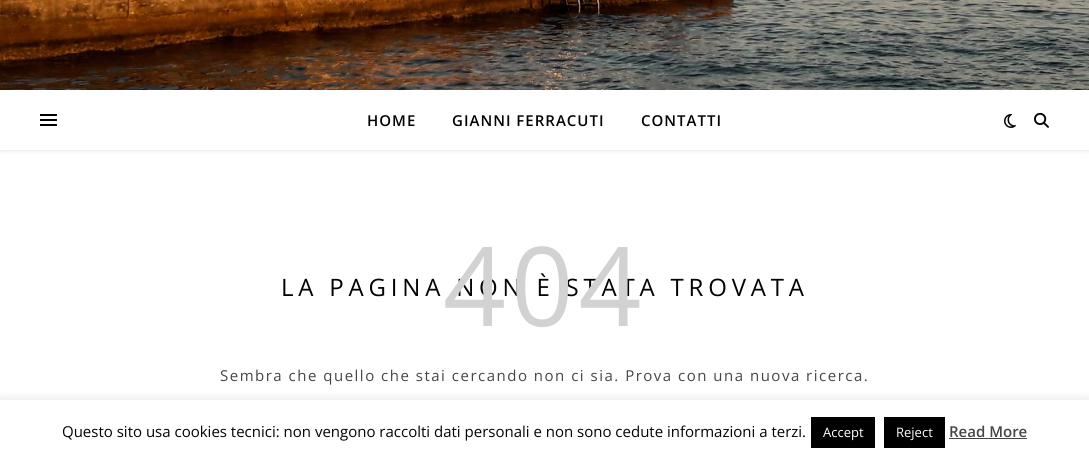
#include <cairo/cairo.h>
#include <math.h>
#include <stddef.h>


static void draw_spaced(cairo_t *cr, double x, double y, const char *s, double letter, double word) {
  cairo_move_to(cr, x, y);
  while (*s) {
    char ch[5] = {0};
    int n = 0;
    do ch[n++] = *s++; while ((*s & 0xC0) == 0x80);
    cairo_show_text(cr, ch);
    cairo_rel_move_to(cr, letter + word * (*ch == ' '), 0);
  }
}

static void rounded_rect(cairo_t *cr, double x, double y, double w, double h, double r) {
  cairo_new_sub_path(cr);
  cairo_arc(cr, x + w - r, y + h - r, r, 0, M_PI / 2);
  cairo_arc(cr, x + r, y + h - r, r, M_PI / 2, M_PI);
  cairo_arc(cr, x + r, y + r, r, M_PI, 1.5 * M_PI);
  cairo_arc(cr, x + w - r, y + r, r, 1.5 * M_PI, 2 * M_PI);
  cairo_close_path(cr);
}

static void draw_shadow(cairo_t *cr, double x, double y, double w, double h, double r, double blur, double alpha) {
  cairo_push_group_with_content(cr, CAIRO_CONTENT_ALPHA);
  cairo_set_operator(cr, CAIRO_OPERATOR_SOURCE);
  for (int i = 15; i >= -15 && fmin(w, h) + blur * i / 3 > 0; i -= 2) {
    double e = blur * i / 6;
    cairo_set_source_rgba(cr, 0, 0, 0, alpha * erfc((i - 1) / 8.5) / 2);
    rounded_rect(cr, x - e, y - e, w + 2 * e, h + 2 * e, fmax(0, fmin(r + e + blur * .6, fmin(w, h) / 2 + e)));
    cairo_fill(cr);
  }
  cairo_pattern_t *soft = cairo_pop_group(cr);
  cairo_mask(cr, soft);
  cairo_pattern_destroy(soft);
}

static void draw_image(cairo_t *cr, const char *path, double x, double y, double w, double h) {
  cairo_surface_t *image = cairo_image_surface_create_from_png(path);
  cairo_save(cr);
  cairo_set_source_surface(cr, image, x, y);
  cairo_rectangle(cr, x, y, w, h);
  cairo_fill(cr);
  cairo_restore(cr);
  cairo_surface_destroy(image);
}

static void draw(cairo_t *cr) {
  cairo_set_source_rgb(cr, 1, 1, 1);
  cairo_paint(cr);
  draw_image(cr, "images/1.png", 0, 0, 1089, 90);
  cairo_save(cr);
  cairo_set_fill_rule(cr, CAIRO_FILL_RULE_EVEN_ODD);
  cairo_new_path(cr);
  cairo_move_to(cr, 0, 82);
  cairo_line_to(cr, 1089, 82);
  cairo_line_to(cr, 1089, 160);
  cairo_line_to(cr, 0, 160);
  cairo_close_path(cr);
  cairo_move_to(cr, 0, 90);
  cairo_line_to(cr, 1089, 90);
  cairo_line_to(cr, 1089, 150);
  cairo_line_to(cr, 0, 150);
  cairo_close_path(cr);
  cairo_clip(cr);
  cairo_set_source_rgb(cr, 0, 0, 0);
  draw_shadow(cr, 0, 91, 1089, 60, 0, 2.5, 0.1);
  cairo_restore(cr);
  cairo_set_source_rgb(cr, 0, 0, 0);
  cairo_rectangle(cr, 40, 114, 17, 2);
  cairo_fill(cr);
  cairo_rectangle(cr, 40, 119, 17, 2);
  cairo_fill(cr);
  cairo_rectangle(cr, 40, 124, 17, 2);
  cairo_fill(cr);
  draw_image(cr, "images/2.png", 1004, 114, 12, 14);
  draw_image(cr, "images/3.png", 1034, 112, 15, 16);
  cairo_save(cr);
  cairo_rectangle(cr, 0, 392, 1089, 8);
  cairo_clip(cr);
  cairo_set_source_rgb(cr, 172 / 255.0, 171 / 255.0, 171 / 255.0);
  draw_shadow(cr, 0, 399, 1089, 60, 0, 5, 0.3);
  cairo_restore(cr);
  cairo_rectangle(cr, 811, 417, 64, 31);
  cairo_fill(cr);
  cairo_rectangle(cr, 884, 417, 61, 31);
  cairo_fill(cr);
  cairo_set_source_rgb(cr, 68 / 255.0, 68 / 255.0, 68 / 255.0);
  cairo_rectangle(cr, 949, 438, 78, 1);
  cairo_fill(cr);
  cairo_select_font_face(cr, "Open Sans SemiBold", CAIRO_FONT_SLANT_NORMAL, CAIRO_FONT_WEIGHT_NORMAL);
  cairo_set_font_size(cr, 15);
  cairo_set_source_rgb(cr, 3 / 255.0, 3 / 255.0, 3 / 255.0);
  draw_spaced(cr, 367, 126, "HOME", 1, 0);
  draw_spaced(cr, 452, 126, "GIANNI FERRACUTI", 1, 0);
  draw_spaced(cr, 641, 126, "CONTATTI", 1, 0);
  cairo_select_font_face(cr, "Open Sans", CAIRO_FONT_SLANT_NORMAL, CAIRO_FONT_WEIGHT_NORMAL);
  cairo_set_font_size(cr, 24);
  draw_spaced(cr, 281, 296, "LA PAGINA NON È STATA TROVATA", 4.8, 0);
  cairo_set_font_size(cr, 110);
  cairo_set_source_rgb(cr, 210 / 255.0, 210 / 255.0, 210 / 255.0);
  draw_spaced(cr, 443, 326, "404", 4.8, 0);
  cairo_set_font_size(cr, 15);
  cairo_set_source_rgb(cr, 70 / 255.0, 70 / 255.0, 70 / 255.0);
  draw_spaced(cr, 220, 381, "Sembra che quello che stai cercando non ci sia. Prova con una nuova ricerca.", 1.5, 0);
  cairo_set_source_rgb(cr, 3 / 255.0, 3 / 255.0, 3 / 255.0);
  cairo_move_to(cr, 62, 437);
  cairo_show_text(cr, "Questo sito usa cookies tecnici: non vengono raccolti dati personali e non sono cedute informazioni a terzi.");
  cairo_set_font_size(cr, 13);
  cairo_set_source_rgb(cr, 1, 1, 1);
  cairo_move_to(cr, 823, 437);
  cairo_show_text(cr, "Accept");
  cairo_move_to(cr, 896, 437);
  cairo_show_text(cr, "Reject");
  cairo_select_font_face(cr, "Open Sans SemiBold", CAIRO_FONT_SLANT_NORMAL, CAIRO_FONT_WEIGHT_NORMAL);
  cairo_set_font_size(cr, 15);
  cairo_set_source_rgb(cr, 70 / 255.0, 70 / 255.0, 70 / 255.0);
  cairo_move_to(cr, 949, 437);
  cairo_show_text(cr, "Read More");
}

int main(void) {
  cairo_surface_t *surface = cairo_image_surface_create(CAIRO_FORMAT_RGB24, 1089, 460);
  cairo_t *cr = cairo_create(surface);
  cairo_font_options_t *options = cairo_font_options_create();
  cairo_font_options_set_hint_metrics(options, CAIRO_HINT_METRICS_OFF);
  cairo_font_options_set_hint_style(options, CAIRO_HINT_STYLE_NONE);
  cairo_set_font_options(cr, options);
  cairo_set_miter_limit(cr, 4);
  draw(cr);
  cairo_surface_write_to_png(surface, "out.png");
  cairo_font_options_destroy(options);
  cairo_destroy(cr);
  cairo_surface_destroy(surface);
  return 0;
}
